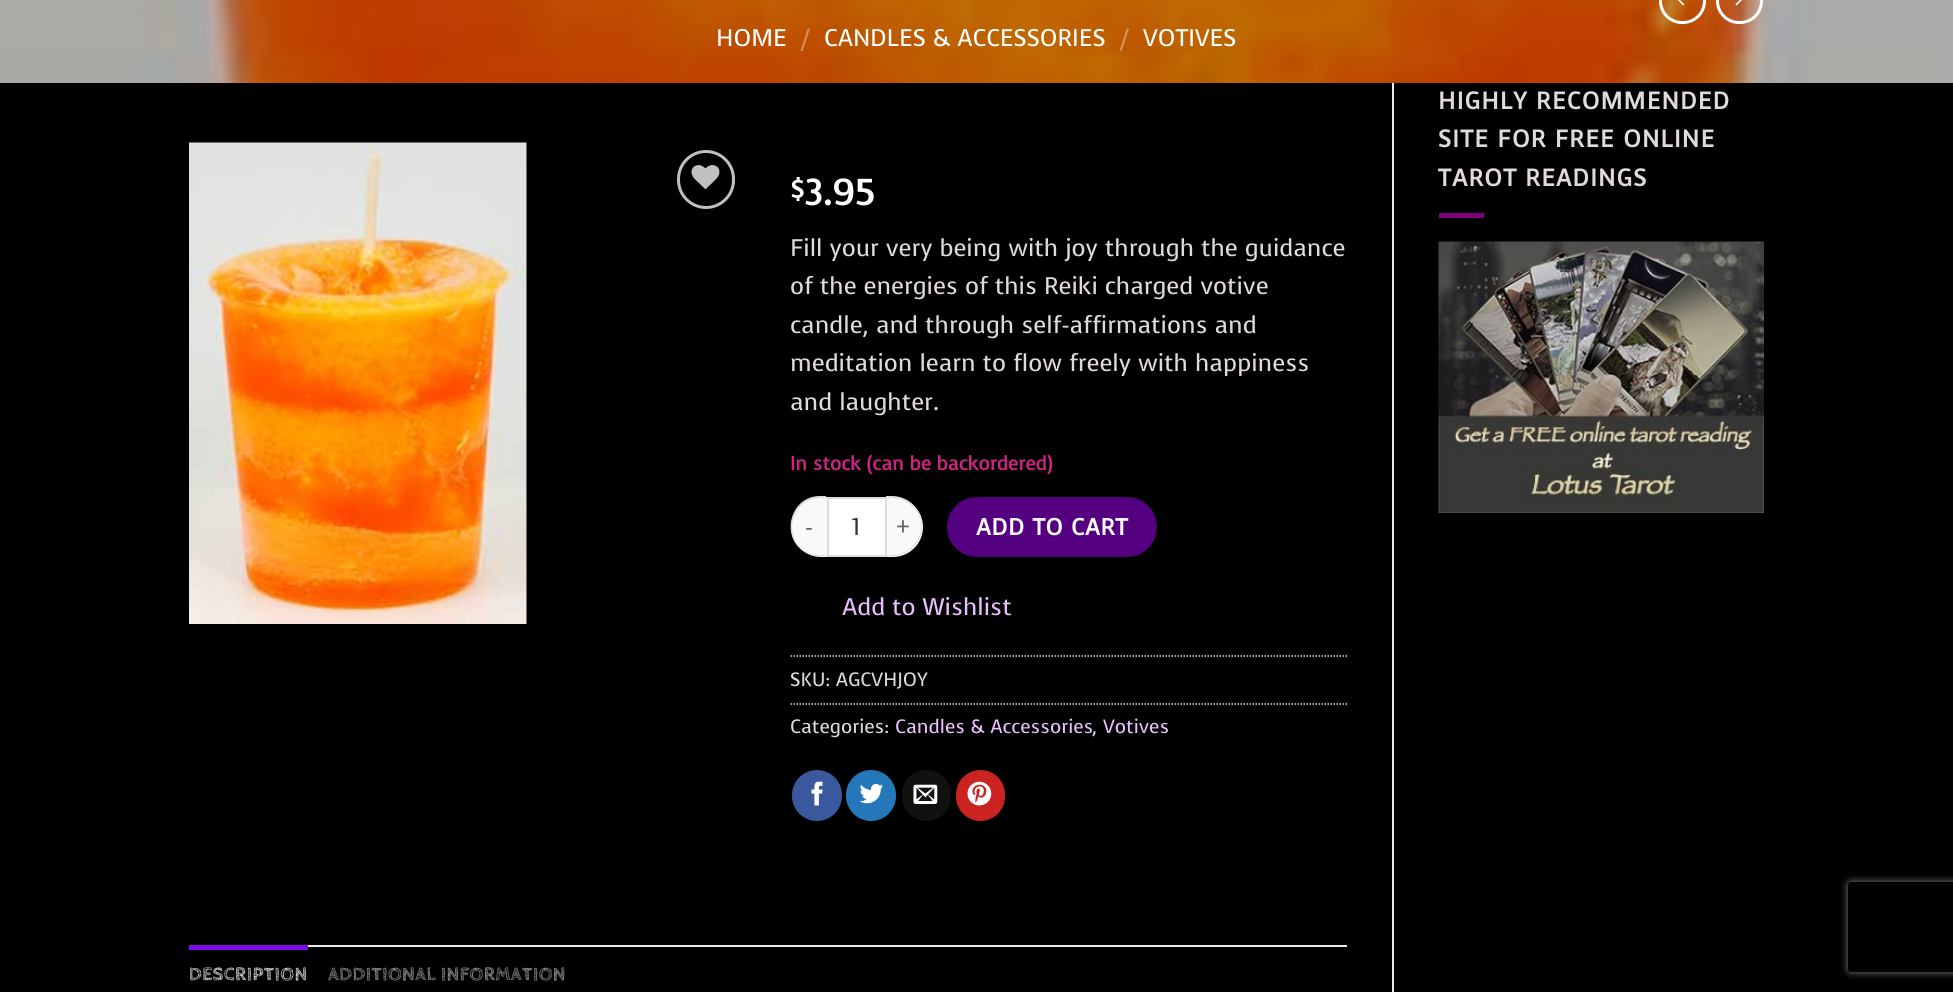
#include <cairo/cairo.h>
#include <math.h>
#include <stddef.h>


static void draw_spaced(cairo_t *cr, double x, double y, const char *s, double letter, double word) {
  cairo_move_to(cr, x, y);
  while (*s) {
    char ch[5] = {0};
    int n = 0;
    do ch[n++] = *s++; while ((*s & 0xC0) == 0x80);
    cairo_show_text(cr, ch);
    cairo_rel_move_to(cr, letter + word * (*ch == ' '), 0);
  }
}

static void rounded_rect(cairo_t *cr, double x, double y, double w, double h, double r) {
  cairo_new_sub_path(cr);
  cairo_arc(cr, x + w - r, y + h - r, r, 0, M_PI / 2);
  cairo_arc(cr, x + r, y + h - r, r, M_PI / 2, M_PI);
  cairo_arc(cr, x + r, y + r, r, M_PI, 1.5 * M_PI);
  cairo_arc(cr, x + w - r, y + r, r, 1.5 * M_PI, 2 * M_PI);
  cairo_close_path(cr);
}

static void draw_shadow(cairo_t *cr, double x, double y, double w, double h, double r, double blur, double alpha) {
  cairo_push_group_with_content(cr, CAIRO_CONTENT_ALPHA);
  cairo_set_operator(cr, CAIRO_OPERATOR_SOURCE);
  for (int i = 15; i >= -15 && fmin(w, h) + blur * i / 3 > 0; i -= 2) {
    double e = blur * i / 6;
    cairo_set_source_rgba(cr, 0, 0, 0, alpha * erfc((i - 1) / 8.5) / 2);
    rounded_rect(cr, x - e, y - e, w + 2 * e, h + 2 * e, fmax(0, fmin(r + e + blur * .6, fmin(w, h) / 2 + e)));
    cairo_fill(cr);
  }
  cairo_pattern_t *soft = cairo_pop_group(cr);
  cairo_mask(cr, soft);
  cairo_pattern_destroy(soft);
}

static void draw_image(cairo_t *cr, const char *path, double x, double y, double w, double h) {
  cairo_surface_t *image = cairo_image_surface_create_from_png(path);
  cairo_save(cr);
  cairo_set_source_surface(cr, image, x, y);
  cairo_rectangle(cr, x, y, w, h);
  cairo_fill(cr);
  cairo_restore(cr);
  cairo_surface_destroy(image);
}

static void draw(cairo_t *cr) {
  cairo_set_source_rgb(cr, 0, 0, 0);
  cairo_paint(cr);
  draw_image(cr, "images/1.png", 0, 0, 1953, 83);
  rounded_rect(cr, 1660.5, -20.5, 44, 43, 21.5);
  cairo_set_source_rgb(cr, 1, 1, 1);
  cairo_set_line_width(cr, 3);
  cairo_stroke(cr);
  draw_image(cr, "images/2.png", 1677, 0, 8, 6);
  rounded_rect(cr, 1717.5, -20.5, 44, 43, 21.5);
  cairo_stroke(cr);
  draw_image(cr, "images/3.png", 1735, 0, 7, 6);
  cairo_set_source_rgb(cr, 128 / 255.0, 0, 128 / 255.0);
  cairo_rectangle(cr, 1439, 213, 45, 5);
  cairo_fill(cr);
  draw_image(cr, "images/4.png", 1438, 241, 326, 272);
  cairo_set_source_rgb(cr, 236 / 255.0, 236 / 255.0, 236 / 255.0);
  cairo_rectangle(cr, 1392, 83, 2, 909);
  cairo_fill(cr);
  draw_image(cr, "images/5.png", 189, 142, 338, 482);
  rounded_rect(cr, 678.5, 151.5, 55, 56, 27.5);
  cairo_set_source_rgb(cr, 192 / 255.0, 192 / 255.0, 192 / 255.0);
  cairo_stroke(cr);
  draw_image(cr, "images/6.png", 691, 165, 29, 24);
  cairo_set_source_rgb(cr, 249 / 255.0, 249 / 255.0, 249 / 255.0);
  cairo_new_path(cr);
  cairo_move_to(cr, 821, 497);
  cairo_line_to(cr, 827, 497);
  cairo_line_to(cr, 827, 557);
  cairo_line_to(cr, 821, 557);
  cairo_curve_to(cr, 804.5, 557, 791, 543.5, 791, 527);
  cairo_curve_to(cr, 791, 510.5, 804.5, 497, 821, 497);
  cairo_close_path(cr);
  cairo_fill(cr);
  cairo_set_source_rgb(cr, 221 / 255.0, 221 / 255.0, 221 / 255.0);
  cairo_set_fill_rule(cr, CAIRO_FILL_RULE_EVEN_ODD);
  cairo_new_path(cr);
  cairo_move_to(cr, 820, 496);
  cairo_line_to(cr, 826, 496);
  cairo_line_to(cr, 826, 556);
  cairo_curve_to(cr, 820, 556, 815, 557, 809, 554);
  cairo_curve_to(cr, 779, 542, 788, 496, 820, 496);
  cairo_close_path(cr);
  cairo_move_to(cr, 820, 498);
  cairo_line_to(cr, 826, 498);
  cairo_line_to(cr, 826, 555);
  cairo_curve_to(cr, 821, 555, 815, 555, 809, 553);
  cairo_curve_to(cr, 781, 541, 790, 498, 820, 498);
  cairo_close_path(cr);
  cairo_fill(cr);
  cairo_set_source_rgb(cr, 1, 1, 1);
  cairo_rectangle(cr, 828, 498, 58, 58);
  cairo_fill_preserve(cr);
  cairo_set_source_rgb(cr, 221 / 255.0, 221 / 255.0, 221 / 255.0);
  cairo_set_line_width(cr, 2);
  cairo_stroke(cr);
  cairo_set_source_rgb(cr, 249 / 255.0, 249 / 255.0, 249 / 255.0);
  cairo_new_path(cr);
  cairo_move_to(cr, 887, 497);
  cairo_line_to(cr, 893, 497);
  cairo_curve_to(cr, 909.5, 497, 923, 510.5, 923, 527);
  cairo_curve_to(cr, 923, 543.5, 909.5, 557, 893, 557);
  cairo_line_to(cr, 887, 557);
  cairo_close_path(cr);
  cairo_fill(cr);
  cairo_set_source_rgb(cr, 221 / 255.0, 221 / 255.0, 221 / 255.0);
  cairo_new_path(cr);
  cairo_move_to(cr, 886, 496);
  cairo_line_to(cr, 892, 496);
  cairo_curve_to(cr, 909, 496, 922, 510, 922, 526);
  cairo_curve_to(cr, 922, 543, 909, 556, 892, 556);
  cairo_line_to(cr, 886, 556);
  cairo_close_path(cr);
  cairo_move_to(cr, 886, 498);
  cairo_line_to(cr, 892, 498);
  cairo_curve_to(cr, 908, 498, 921, 511, 921, 526);
  cairo_curve_to(cr, 921, 542, 908, 555, 892, 555);
  cairo_line_to(cr, 886, 555);
  cairo_close_path(cr);
  cairo_fill(cr);
  cairo_set_source_rgb(cr, 85 / 255.0, 0, 128 / 255.0);
  rounded_rect(cr, 947, 497, 210, 60, 30);
  cairo_fill(cr);
  cairo_rectangle(cr, 948, 498, 208, 58);
  cairo_set_source_rgba(cr, 0, 0, 0, 0.05);
  cairo_stroke(cr);
  cairo_new_path(cr);
  cairo_move_to(cr, 790.5, 656);
  cairo_line_to(cr, 1347, 656);
  cairo_set_source_rgb(cr, 221 / 255.0, 221 / 255.0, 221 / 255.0);
  cairo_set_line_width(cr, 1.5);
  cairo_set_dash(cr, (double[]){1.5, 1.5}, 2, 0);
  cairo_stroke(cr);
  cairo_new_path(cr);
  cairo_move_to(cr, 790.5, 704);
  cairo_line_to(cr, 1347, 704);
  cairo_stroke(cr);
  cairo_set_source_rgb(cr, 58 / 255.0, 88 / 255.0, 157 / 255.0);
  rounded_rect(cr, 793, 771, 48, 49, 24);
  cairo_fill_preserve(cr);
  cairo_set_line_width(cr, 2);
  cairo_set_dash(cr, NULL, 0, 0);
  cairo_stroke(cr);
  draw_image(cr, "images/7.png", 811, 781, 12, 25);
  cairo_set_source_rgb(cr, 36 / 255.0, 120 / 255.0, 186 / 255.0);
  rounded_rect(cr, 847, 771, 48, 49, 24);
  cairo_fill_preserve(cr);
  cairo_stroke(cr);
  draw_image(cr, "images/8.png", 859, 784, 25, 20);
  cairo_set_source_rgb(cr, 17 / 255.0, 17 / 255.0, 17 / 255.0);
  rounded_rect(cr, 903, 771, 47, 49, 23.5);
  cairo_fill_preserve(cr);
  cairo_stroke(cr);
  draw_image(cr, "images/9.png", 913, 784, 25, 20);
  cairo_set_source_rgb(cr, 203 / 255.0, 35 / 255.0, 32 / 255.0);
  rounded_rect(cr, 957, 771, 47, 49, 23.5);
  cairo_fill_preserve(cr);
  cairo_stroke(cr);
  draw_image(cr, "images/10.png", 967, 781, 25, 25);
  cairo_set_source_rgb(cr, 236 / 255.0, 236 / 255.0, 236 / 255.0);
  cairo_rectangle(cr, 308, 945, 1039, 2);
  cairo_fill(cr);
  cairo_set_source_rgb(cr, 124 / 255.0, 12 / 255.0, 237 / 255.0);
  cairo_rectangle(cr, 189, 945, 119, 5);
  cairo_fill(cr);
  cairo_save(cr);
  cairo_new_path(cr);
  cairo_move_to(cr, 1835, 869);
  cairo_line_to(cr, 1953, 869);
  cairo_line_to(cr, 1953, 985);
  cairo_line_to(cr, 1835, 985);
  cairo_close_path(cr);
  cairo_move_to(cr, 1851, 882);
  cairo_line_to(cr, 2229, 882);
  cairo_curve_to(cr, 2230.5, 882, 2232, 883.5, 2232, 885);
  cairo_line_to(cr, 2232, 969);
  cairo_curve_to(cr, 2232, 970.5, 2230.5, 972, 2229, 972);
  cairo_line_to(cr, 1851, 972);
  cairo_curve_to(cr, 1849.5, 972, 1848, 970.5, 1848, 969);
  cairo_line_to(cr, 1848, 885);
  cairo_curve_to(cr, 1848, 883.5, 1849.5, 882, 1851, 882);
  cairo_close_path(cr);
  cairo_clip(cr);
  cairo_set_source_rgb(cr, 128 / 255.0, 128 / 255.0, 128 / 255.0);
  draw_shadow(cr, 1848, 882, 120, 90, 3, 4, 1);
  cairo_restore(cr);
  cairo_select_font_face(cr, "Voces", CAIRO_FONT_SLANT_NORMAL, CAIRO_FONT_WEIGHT_NORMAL);
  cairo_set_font_size(cr, 24);
  cairo_set_source_rgb(cr, 1, 1, 1);
  cairo_move_to(cr, 716, 46);
  cairo_show_text(cr, "HOME");
  cairo_set_source_rgb(cr, 213 / 255.0, 141 / 255.0, 89 / 255.0);
  cairo_move_to(cr, 801, 46);
  cairo_show_text(cr, "/");
  cairo_set_source_rgb(cr, 1, 1, 1);
  cairo_move_to(cr, 824, 46);
  cairo_show_text(cr, "CANDLES & ACCESSORIES");
  cairo_set_source_rgb(cr, 212 / 255.0, 147 / 255.0, 90 / 255.0);
  cairo_move_to(cr, 1120, 46);
  cairo_show_text(cr, "/");
  cairo_set_source_rgb(cr, 1, 1, 1);
  cairo_move_to(cr, 1143, 46);
  cairo_show_text(cr, "VOTIVES");
  cairo_select_font_face(cr, "Voces", CAIRO_FONT_SLANT_NORMAL, CAIRO_FONT_WEIGHT_BOLD);
  cairo_set_source_rgb(cr, 225 / 255.0, 218 / 255.0, 218 / 255.0);
  draw_spaced(cr, 1438, 109, "HIGHLY RECOMMENDED", 1.2, 0);
  draw_spaced(cr, 1438, 147, "SITE FOR FREE ONLINE", 1.2, 0);
  draw_spaced(cr, 1438, 186, "TAROT READINGS", 1.2, 0);
  cairo_set_font_size(cr, 27);
  cairo_set_source_rgb(cr, 1, 1, 1);
  cairo_move_to(cr, 790, 198);
  cairo_show_text(cr, "$");
  cairo_set_font_size(cr, 36);
  cairo_move_to(cr, 804, 205);
  cairo_show_text(cr, "3.95");
  cairo_select_font_face(cr, "Voces", CAIRO_FONT_SLANT_NORMAL, CAIRO_FONT_WEIGHT_NORMAL);
  cairo_set_font_size(cr, 24);
  cairo_set_source_rgb(cr, 225 / 255.0, 218 / 255.0, 218 / 255.0);
  cairo_move_to(cr, 790, 256);
  cairo_show_text(cr, "Fill your very being with joy through the guidance");
  cairo_move_to(cr, 790, 294);
  cairo_show_text(cr, "of the energies of this Reiki charged votive");
  cairo_move_to(cr, 790, 333);
  cairo_show_text(cr, "candle, and through self-affirmations and");
  cairo_move_to(cr, 790, 371);
  cairo_show_text(cr, "meditation learn to flow freely with happiness");
  cairo_move_to(cr, 790, 410);
  cairo_show_text(cr, "and laughter.");
  cairo_select_font_face(cr, "Voces", CAIRO_FONT_SLANT_NORMAL, CAIRO_FONT_WEIGHT_BOLD);
  cairo_set_font_size(cr, 19.25);
  cairo_set_source_rgb(cr, 202 / 255.0, 37 / 255.0, 128 / 255.0);
  cairo_move_to(cr, 790, 470);
  cairo_show_text(cr, "In stock (can be backordered)");
  cairo_select_font_face(cr, "Voces", CAIRO_FONT_SLANT_NORMAL, CAIRO_FONT_WEIGHT_NORMAL);
  cairo_set_font_size(cr, 23.25);
  cairo_set_source_rgb(cr, 102 / 255.0, 102 / 255.0, 102 / 255.0);
  draw_spaced(cr, 805, 535, "-", 0.75, 0);
  cairo_set_font_size(cr, 24);
  cairo_set_source_rgb(cr, 51 / 255.0, 51 / 255.0, 51 / 255.0);
  cairo_move_to(cr, 852, 535);
  cairo_show_text(cr, "1");
  cairo_set_font_size(cr, 23.25);
  cairo_set_source_rgb(cr, 102 / 255.0, 102 / 255.0, 102 / 255.0);
  draw_spaced(cr, 896, 535, "+", 0.75, 0);
  cairo_select_font_face(cr, "Voces", CAIRO_FONT_SLANT_NORMAL, CAIRO_FONT_WEIGHT_BOLD);
  cairo_set_source_rgb(cr, 1, 1, 1);
  draw_spaced(cr, 976, 535, "ADD TO CART", 0.75, 0);
  cairo_select_font_face(cr, "Voces", CAIRO_FONT_SLANT_NORMAL, CAIRO_FONT_WEIGHT_NORMAL);
  cairo_set_font_size(cr, 24);
  cairo_set_source_rgb(cr, 234 / 255.0, 191 / 255.0, 1);
  cairo_move_to(cr, 842, 615);
  cairo_show_text(cr, "Add to Wishlist");
  cairo_set_font_size(cr, 19.25);
  cairo_set_source_rgb(cr, 225 / 255.0, 218 / 255.0, 218 / 255.0);
  cairo_move_to(cr, 790, 686);
  cairo_show_text(cr, "SKU: AGCVHJOY");
  cairo_move_to(cr, 790, 733);
  cairo_show_text(cr, "Categories:");
  cairo_set_source_rgb(cr, 234 / 255.0, 191 / 255.0, 1);
  cairo_move_to(cr, 895, 733);
  cairo_show_text(cr, "Candles & Accessories");
  cairo_set_source_rgb(cr, 225 / 255.0, 218 / 255.0, 218 / 255.0);
  cairo_move_to(cr, 1092, 733);
  cairo_show_text(cr, ",");
  cairo_set_source_rgb(cr, 234 / 255.0, 191 / 255.0, 1);
  cairo_move_to(cr, 1103, 733);
  cairo_show_text(cr, "Votives");
  cairo_select_font_face(cr, "Cabin Sketch", CAIRO_FONT_SLANT_NORMAL, CAIRO_FONT_WEIGHT_BOLD);
  cairo_set_source_rgb(cr, 1, 1, 1);
  draw_spaced(cr, 189, 980, "DESCRIPTION", 0.4, 0);
  cairo_set_source_rgb(cr, 173 / 255.0, 173 / 255.0, 173 / 255.0);
  draw_spaced(cr, 328, 980, "ADDITIONAL INFORMATION", 0.4, 0);
}

int main(void) {
  cairo_surface_t *surface = cairo_image_surface_create(CAIRO_FORMAT_RGB24, 1953, 992);
  cairo_t *cr = cairo_create(surface);
  cairo_font_options_t *options = cairo_font_options_create();
  cairo_font_options_set_hint_metrics(options, CAIRO_HINT_METRICS_OFF);
  cairo_font_options_set_hint_style(options, CAIRO_HINT_STYLE_NONE);
  cairo_set_font_options(cr, options);
  cairo_set_miter_limit(cr, 4);
  draw(cr);
  cairo_surface_write_to_png(surface, "out.png");
  cairo_font_options_destroy(options);
  cairo_destroy(cr);
  cairo_surface_destroy(surface);
  return 0;
}
